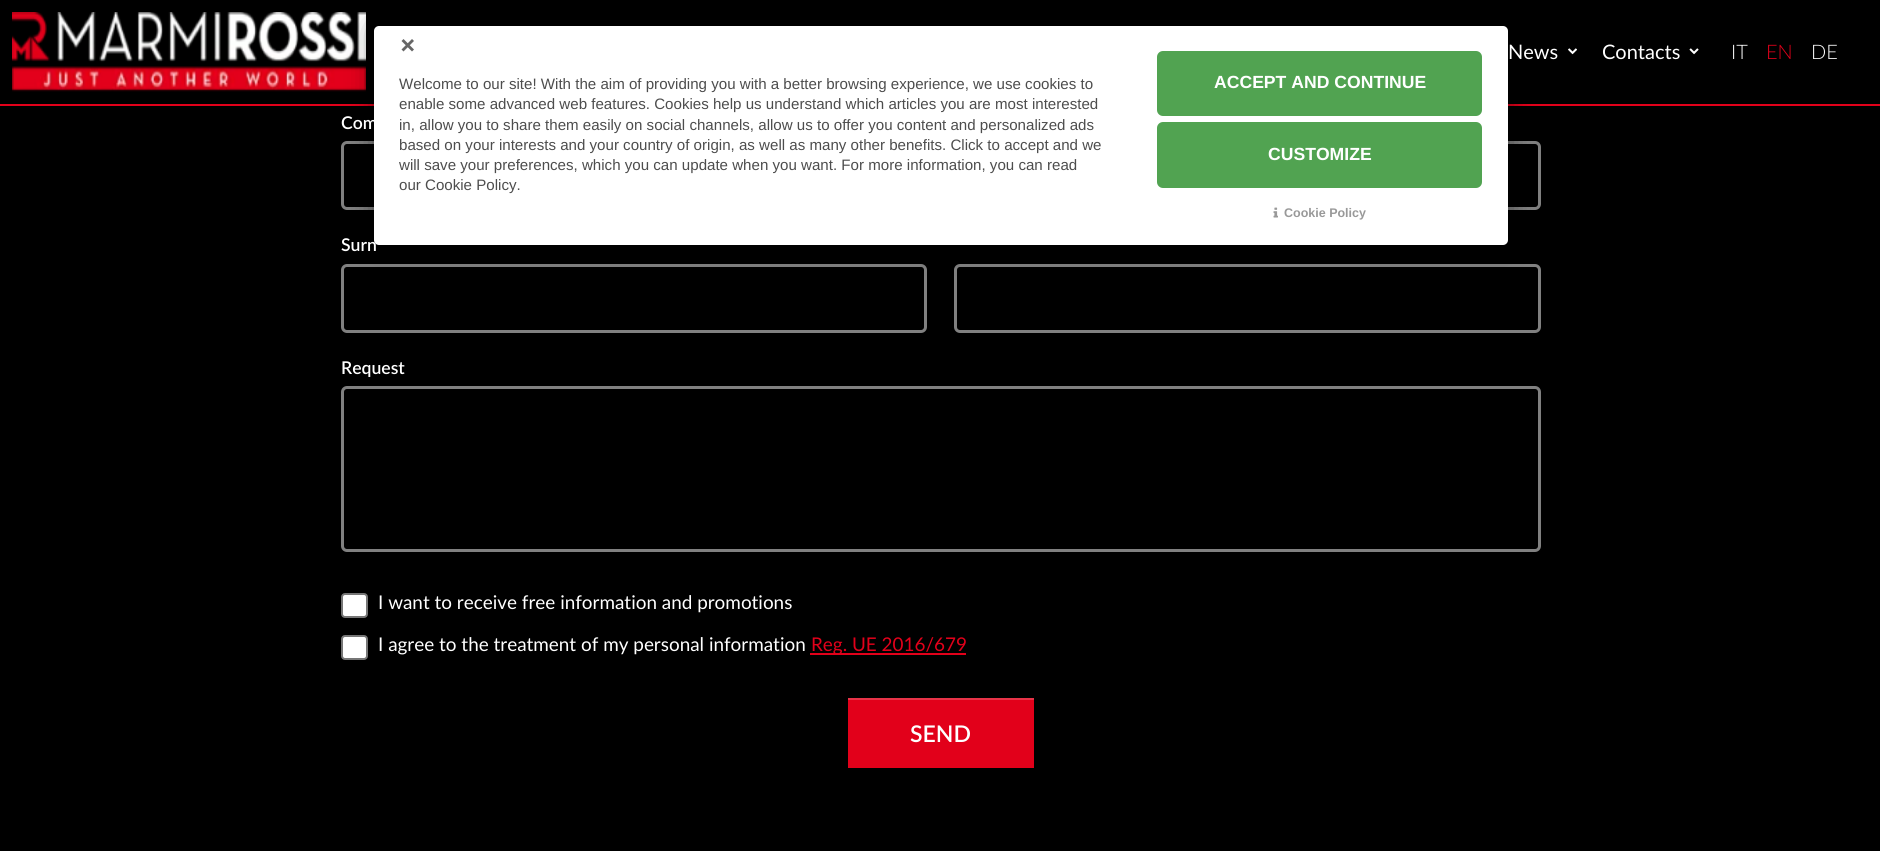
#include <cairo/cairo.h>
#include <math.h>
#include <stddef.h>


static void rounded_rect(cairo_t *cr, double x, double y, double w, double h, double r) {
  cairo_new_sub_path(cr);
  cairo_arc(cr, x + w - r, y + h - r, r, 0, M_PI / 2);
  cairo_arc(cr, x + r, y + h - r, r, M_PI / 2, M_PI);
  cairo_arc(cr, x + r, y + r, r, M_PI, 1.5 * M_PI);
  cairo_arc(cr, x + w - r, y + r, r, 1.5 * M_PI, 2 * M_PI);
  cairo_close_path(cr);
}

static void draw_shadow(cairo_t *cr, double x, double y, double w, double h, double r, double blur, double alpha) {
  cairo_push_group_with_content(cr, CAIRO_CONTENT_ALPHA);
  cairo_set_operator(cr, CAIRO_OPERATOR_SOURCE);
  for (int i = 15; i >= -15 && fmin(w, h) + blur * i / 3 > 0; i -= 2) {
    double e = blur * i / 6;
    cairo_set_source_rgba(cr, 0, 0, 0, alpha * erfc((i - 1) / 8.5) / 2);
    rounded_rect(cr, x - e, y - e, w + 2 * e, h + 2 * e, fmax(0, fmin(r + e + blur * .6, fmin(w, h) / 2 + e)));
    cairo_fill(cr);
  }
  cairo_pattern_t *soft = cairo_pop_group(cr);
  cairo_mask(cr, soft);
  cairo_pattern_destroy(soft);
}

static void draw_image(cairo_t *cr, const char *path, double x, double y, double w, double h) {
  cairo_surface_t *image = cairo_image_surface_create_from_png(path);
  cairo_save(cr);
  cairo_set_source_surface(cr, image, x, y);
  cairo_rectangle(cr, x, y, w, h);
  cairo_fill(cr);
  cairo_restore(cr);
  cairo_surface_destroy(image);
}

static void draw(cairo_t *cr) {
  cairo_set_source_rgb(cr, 0, 0, 0);
  cairo_paint(cr);
  cairo_set_source_rgb(cr, 226 / 255.0, 0, 26 / 255.0);
  cairo_rectangle(cr, 0, 104, 1880, 2);
  cairo_fill(cr);
  draw_image(cr, "images/1.png", 12, 12, 354, 80);
  draw_image(cr, "images/2.png", 1568, 48, 9, 7);
  draw_image(cr, "images/3.png", 1689, 48, 10, 7);
  rounded_rect(cr, 342.5, 142.5, 583, 66, 4.5);
  cairo_set_source_rgb(cr, 128 / 255.0, 128 / 255.0, 128 / 255.0);
  cairo_set_line_width(cr, 3);
  cairo_stroke(cr);
  rounded_rect(cr, 955.5, 142.5, 584, 66, 4.5);
  cairo_stroke(cr);
  rounded_rect(cr, 342.5, 265.5, 583, 66, 4.5);
  cairo_stroke(cr);
  rounded_rect(cr, 955.5, 265.5, 584, 66, 4.5);
  cairo_stroke(cr);
  rounded_rect(cr, 342.5, 387.5, 1197, 163, 4.5);
  cairo_stroke(cr);
  cairo_set_source_rgb(cr, 1, 1, 1);
  rounded_rect(cr, 342, 594, 25, 23, 3);
  cairo_fill_preserve(cr);
  cairo_set_source_rgb(cr, 118 / 255.0, 118 / 255.0, 118 / 255.0);
  cairo_set_line_width(cr, 2);
  cairo_stroke(cr);
  cairo_set_source_rgb(cr, 1, 1, 1);
  rounded_rect(cr, 342, 636, 25, 23, 3);
  cairo_fill_preserve(cr);
  cairo_set_source_rgb(cr, 118 / 255.0, 118 / 255.0, 118 / 255.0);
  cairo_stroke(cr);
  cairo_set_source_rgb(cr, 226 / 255.0, 0, 26 / 255.0);
  cairo_rectangle(cr, 810, 653, 156, 2);
  cairo_fill(cr);
  cairo_rectangle(cr, 848, 700, 186, 68);
  cairo_fill(cr);
  cairo_set_source_rgb(cr, 232 / 255.0, 51 / 255.0, 72 / 255.0);
  cairo_rectangle(cr, 848, 698, 186, 2);
  cairo_fill(cr);
  cairo_set_source_rgb(cr, 0, 0, 0);
  draw_shadow(cr, 374, 26, 1134, 219, 5, 12.5, 0.5);
  cairo_set_source_rgb(cr, 1, 1, 1);
  rounded_rect(cr, 374, 26, 1134, 219, 5);
  cairo_fill(cr);
  cairo_set_source_rgb(cr, 102 / 255.0, 102 / 255.0, 102 / 255.0);
  cairo_new_path(cr);
  cairo_move_to(cr, 412, 39);
  cairo_line_to(cr, 414, 41);
  cairo_line_to(cr, 403.5, 51.5);
  cairo_line_to(cr, 401.5, 49.5);
  cairo_close_path(cr);
  cairo_fill(cr);
  cairo_new_path(cr);
  cairo_move_to(cr, 401.5, 41);
  cairo_line_to(cr, 403.5, 39);
  cairo_line_to(cr, 414, 49.5);
  cairo_line_to(cr, 412, 51.5);
  cairo_close_path(cr);
  cairo_fill(cr);
  cairo_set_source_rgb(cr, 81 / 255.0, 163 / 255.0, 81 / 255.0);
  rounded_rect(cr, 1157, 51, 325, 65, 6);
  cairo_fill(cr);
  rounded_rect(cr, 1157, 122, 325, 66, 6);
  cairo_fill(cr);
  draw_image(cr, "images/4.png", 1273, 207, 5, 11);
  cairo_select_font_face(cr, "Lato", CAIRO_FONT_SLANT_NORMAL, CAIRO_FONT_WEIGHT_NORMAL);
  cairo_set_font_size(cr, 20);
  cairo_set_source_rgb(cr, 1, 1, 1);
  cairo_move_to(cr, 1508, 59);
  cairo_show_text(cr, "News");
  cairo_move_to(cr, 1602, 59);
  cairo_show_text(cr, "Contacts");
  cairo_select_font_face(cr, "Lato Light", CAIRO_FONT_SLANT_NORMAL, CAIRO_FONT_WEIGHT_NORMAL);
  cairo_move_to(cr, 1731, 59);
  cairo_show_text(cr, "IT");
  cairo_set_source_rgb(cr, 226 / 255.0, 0, 26 / 255.0);
  cairo_move_to(cr, 1766, 59);
  cairo_show_text(cr, "EN");
  cairo_set_source_rgb(cr, 1, 1, 1);
  cairo_move_to(cr, 1811, 59);
  cairo_show_text(cr, "DE");
  cairo_select_font_face(cr, "Lato SemiBold", CAIRO_FONT_SLANT_NORMAL, CAIRO_FONT_WEIGHT_NORMAL);
  cairo_set_font_size(cr, 17.6);
  cairo_move_to(cr, 341, 129);
  cairo_show_text(cr, "Com");
  cairo_move_to(cr, 341, 251);
  cairo_show_text(cr, "Surn");
  cairo_move_to(cr, 341, 374);
  cairo_show_text(cr, "Request");
  cairo_select_font_face(cr, "Lato", CAIRO_FONT_SLANT_NORMAL, CAIRO_FONT_WEIGHT_NORMAL);
  cairo_set_font_size(cr, 18.9);
  cairo_move_to(cr, 378, 609);
  cairo_show_text(cr, "I want to receive free information and promotions");
  cairo_move_to(cr, 378, 651);
  cairo_show_text(cr, "I agree to the treatment of my personal information");
  cairo_set_source_rgb(cr, 226 / 255.0, 0, 26 / 255.0);
  cairo_move_to(cr, 811, 651);
  cairo_show_text(cr, "Reg. UE 2016/679");
  cairo_select_font_face(cr, "Lato SemiBold", CAIRO_FONT_SLANT_NORMAL, CAIRO_FONT_WEIGHT_NORMAL);
  cairo_set_font_size(cr, 23);
  cairo_set_source_rgb(cr, 1, 1, 1);
  cairo_move_to(cr, 910, 742);
  cairo_show_text(cr, "SEND");
  cairo_select_font_face(cr, "Liberation Sans", CAIRO_FONT_SLANT_NORMAL, CAIRO_FONT_WEIGHT_NORMAL);
  cairo_set_font_size(cr, 15.1);
  cairo_set_source_rgb(cr, 77 / 255.0, 77 / 255.0, 77 / 255.0);
  cairo_move_to(cr, 399, 89);
  cairo_show_text(cr, "Welcome to our site! With the aim of providing you with a better browsing experience, we use cookies to");
  cairo_move_to(cr, 399, 109);
  cairo_show_text(cr, "enable some advanced web features. Cookies help us understand which articles you are most interested");
  cairo_move_to(cr, 399, 130);
  cairo_show_text(cr, "in, allow you to share them easily on social channels, allow us to offer you content and personalized ads");
  cairo_move_to(cr, 399, 150);
  cairo_show_text(cr, "based on your interests and your country of origin, as well as many other benefits. Click to accept and we");
  cairo_move_to(cr, 399, 170);
  cairo_show_text(cr, "will save your preferences, which you can update when you want. For more information, you can read");
  cairo_move_to(cr, 399, 190);
  cairo_show_text(cr, "our Cookie Policy.");
  cairo_select_font_face(cr, "Liberation Sans", CAIRO_FONT_SLANT_NORMAL, CAIRO_FONT_WEIGHT_BOLD);
  cairo_set_font_size(cr, 17.6);
  cairo_set_source_rgb(cr, 1, 1, 1);
  cairo_move_to(cr, 1214, 88);
  cairo_show_text(cr, "ACCEPT AND CONTINUE");
  cairo_move_to(cr, 1268, 160);
  cairo_show_text(cr, "CUSTOMIZE");
  cairo_set_font_size(cr, 12.5);
  cairo_set_source_rgb(cr, 153 / 255.0, 153 / 255.0, 153 / 255.0);
  cairo_move_to(cr, 1284, 217);
  cairo_show_text(cr, "Cookie Policy");
}

int main(void) {
  cairo_surface_t *surface = cairo_image_surface_create(CAIRO_FORMAT_RGB24, 1880, 851);
  cairo_t *cr = cairo_create(surface);
  cairo_font_options_t *options = cairo_font_options_create();
  cairo_font_options_set_hint_metrics(options, CAIRO_HINT_METRICS_OFF);
  cairo_font_options_set_hint_style(options, CAIRO_HINT_STYLE_NONE);
  cairo_set_font_options(cr, options);
  cairo_set_miter_limit(cr, 4);
  draw(cr);
  cairo_surface_write_to_png(surface, "out.png");
  cairo_font_options_destroy(options);
  cairo_destroy(cr);
  cairo_surface_destroy(surface);
  return 0;
}
